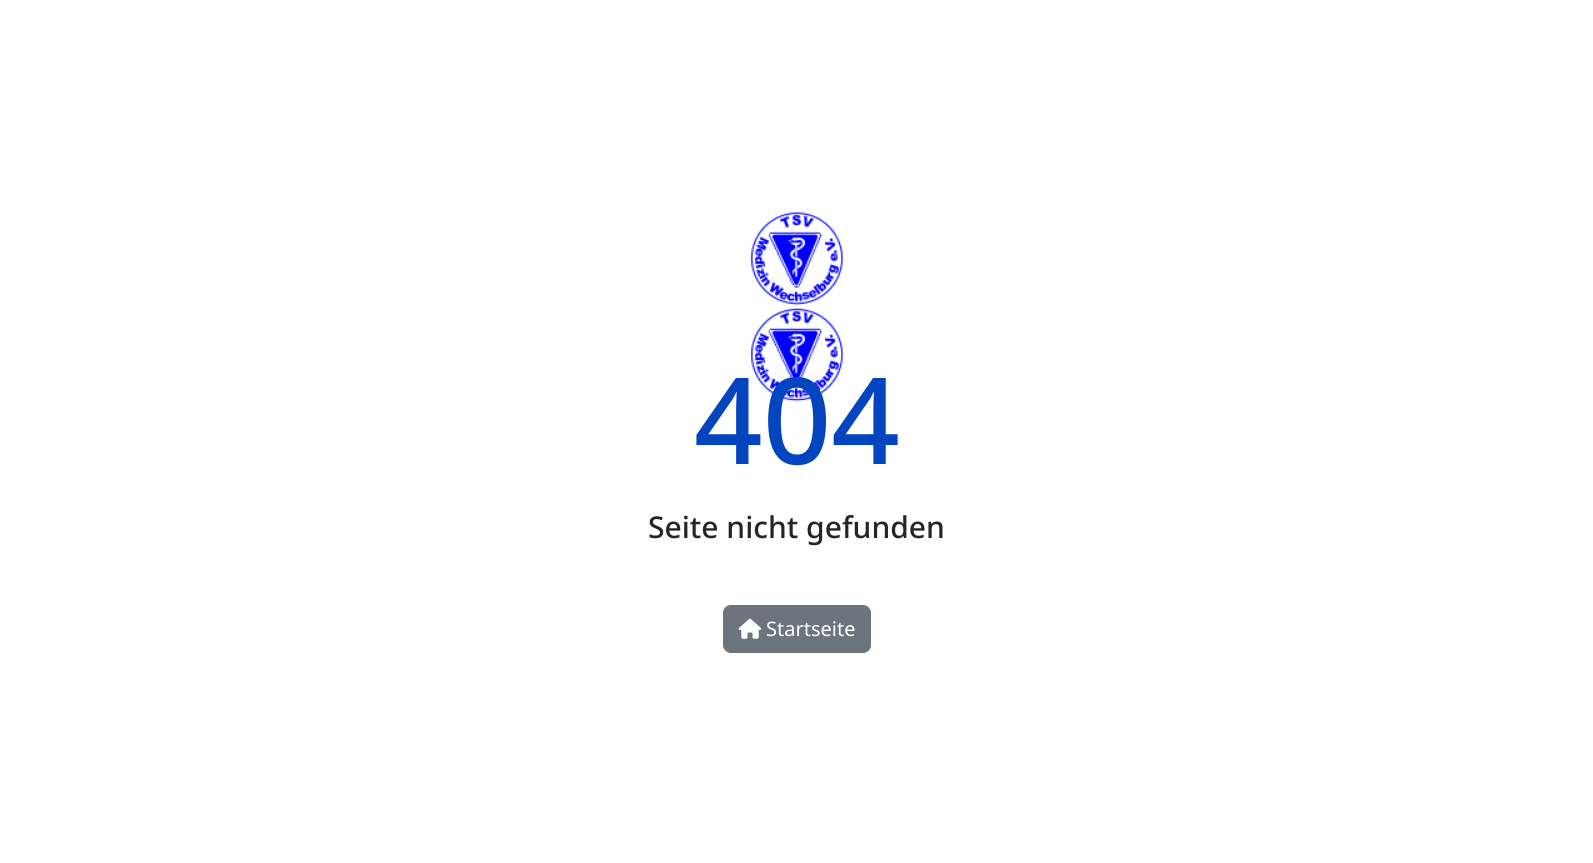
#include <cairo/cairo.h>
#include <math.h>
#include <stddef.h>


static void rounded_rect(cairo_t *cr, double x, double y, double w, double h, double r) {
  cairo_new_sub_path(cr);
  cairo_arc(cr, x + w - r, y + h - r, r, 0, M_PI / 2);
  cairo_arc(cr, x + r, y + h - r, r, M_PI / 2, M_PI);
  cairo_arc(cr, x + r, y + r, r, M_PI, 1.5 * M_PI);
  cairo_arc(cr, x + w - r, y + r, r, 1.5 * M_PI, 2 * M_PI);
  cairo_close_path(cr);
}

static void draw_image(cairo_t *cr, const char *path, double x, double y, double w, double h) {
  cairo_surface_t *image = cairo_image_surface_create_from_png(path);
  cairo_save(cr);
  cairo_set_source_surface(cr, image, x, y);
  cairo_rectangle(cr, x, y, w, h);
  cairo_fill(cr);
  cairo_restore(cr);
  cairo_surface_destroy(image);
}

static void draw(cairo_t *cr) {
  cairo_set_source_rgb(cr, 1, 1, 1);
  cairo_paint(cr);
  draw_image(cr, "images/1.png", 750, 308, 94, 94);
  draw_image(cr, "images/2.png", 750, 212, 94, 93);
  cairo_set_source_rgb(cr, 108 / 255.0, 117 / 255.0, 125 / 255.0);
  rounded_rect(cr, 723.5, 605.5, 147, 47, 7.5);
  cairo_fill_preserve(cr);
  cairo_set_line_width(cr, 1);
  cairo_stroke(cr);
  draw_image(cr, "images/3.png", 738, 618, 24, 21);
  cairo_select_font_face(cr, "Noto Sans Medium", CAIRO_FONT_SLANT_NORMAL, CAIRO_FONT_WEIGHT_NORMAL);
  cairo_set_font_size(cr, 120);
  cairo_set_source_rgb(cr, 3 / 255.0, 69 / 255.0, 191 / 255.0);
  cairo_move_to(cr, 694, 464);
  cairo_show_text(cr, "404");
  cairo_set_font_size(cr, 30);
  cairo_set_source_rgb(cr, 37 / 255.0, 37 / 255.0, 37 / 255.0);
  cairo_move_to(cr, 648, 538);
  cairo_show_text(cr, "Seite nicht gefunden");
  cairo_select_font_face(cr, "Noto Sans", CAIRO_FONT_SLANT_NORMAL, CAIRO_FONT_WEIGHT_NORMAL);
  cairo_set_font_size(cr, 20);
  cairo_set_source_rgb(cr, 1, 1, 1);
  cairo_move_to(cr, 766, 636);
  cairo_show_text(cr, "Startseite");
}

int main(void) {
  cairo_surface_t *surface = cairo_image_surface_create(CAIRO_FORMAT_RGB24, 1593, 863);
  cairo_t *cr = cairo_create(surface);
  cairo_font_options_t *options = cairo_font_options_create();
  cairo_font_options_set_hint_metrics(options, CAIRO_HINT_METRICS_OFF);
  cairo_font_options_set_hint_style(options, CAIRO_HINT_STYLE_NONE);
  cairo_set_font_options(cr, options);
  cairo_set_miter_limit(cr, 4);
  draw(cr);
  cairo_surface_write_to_png(surface, "out.png");
  cairo_font_options_destroy(options);
  cairo_destroy(cr);
  cairo_surface_destroy(surface);
  return 0;
}
